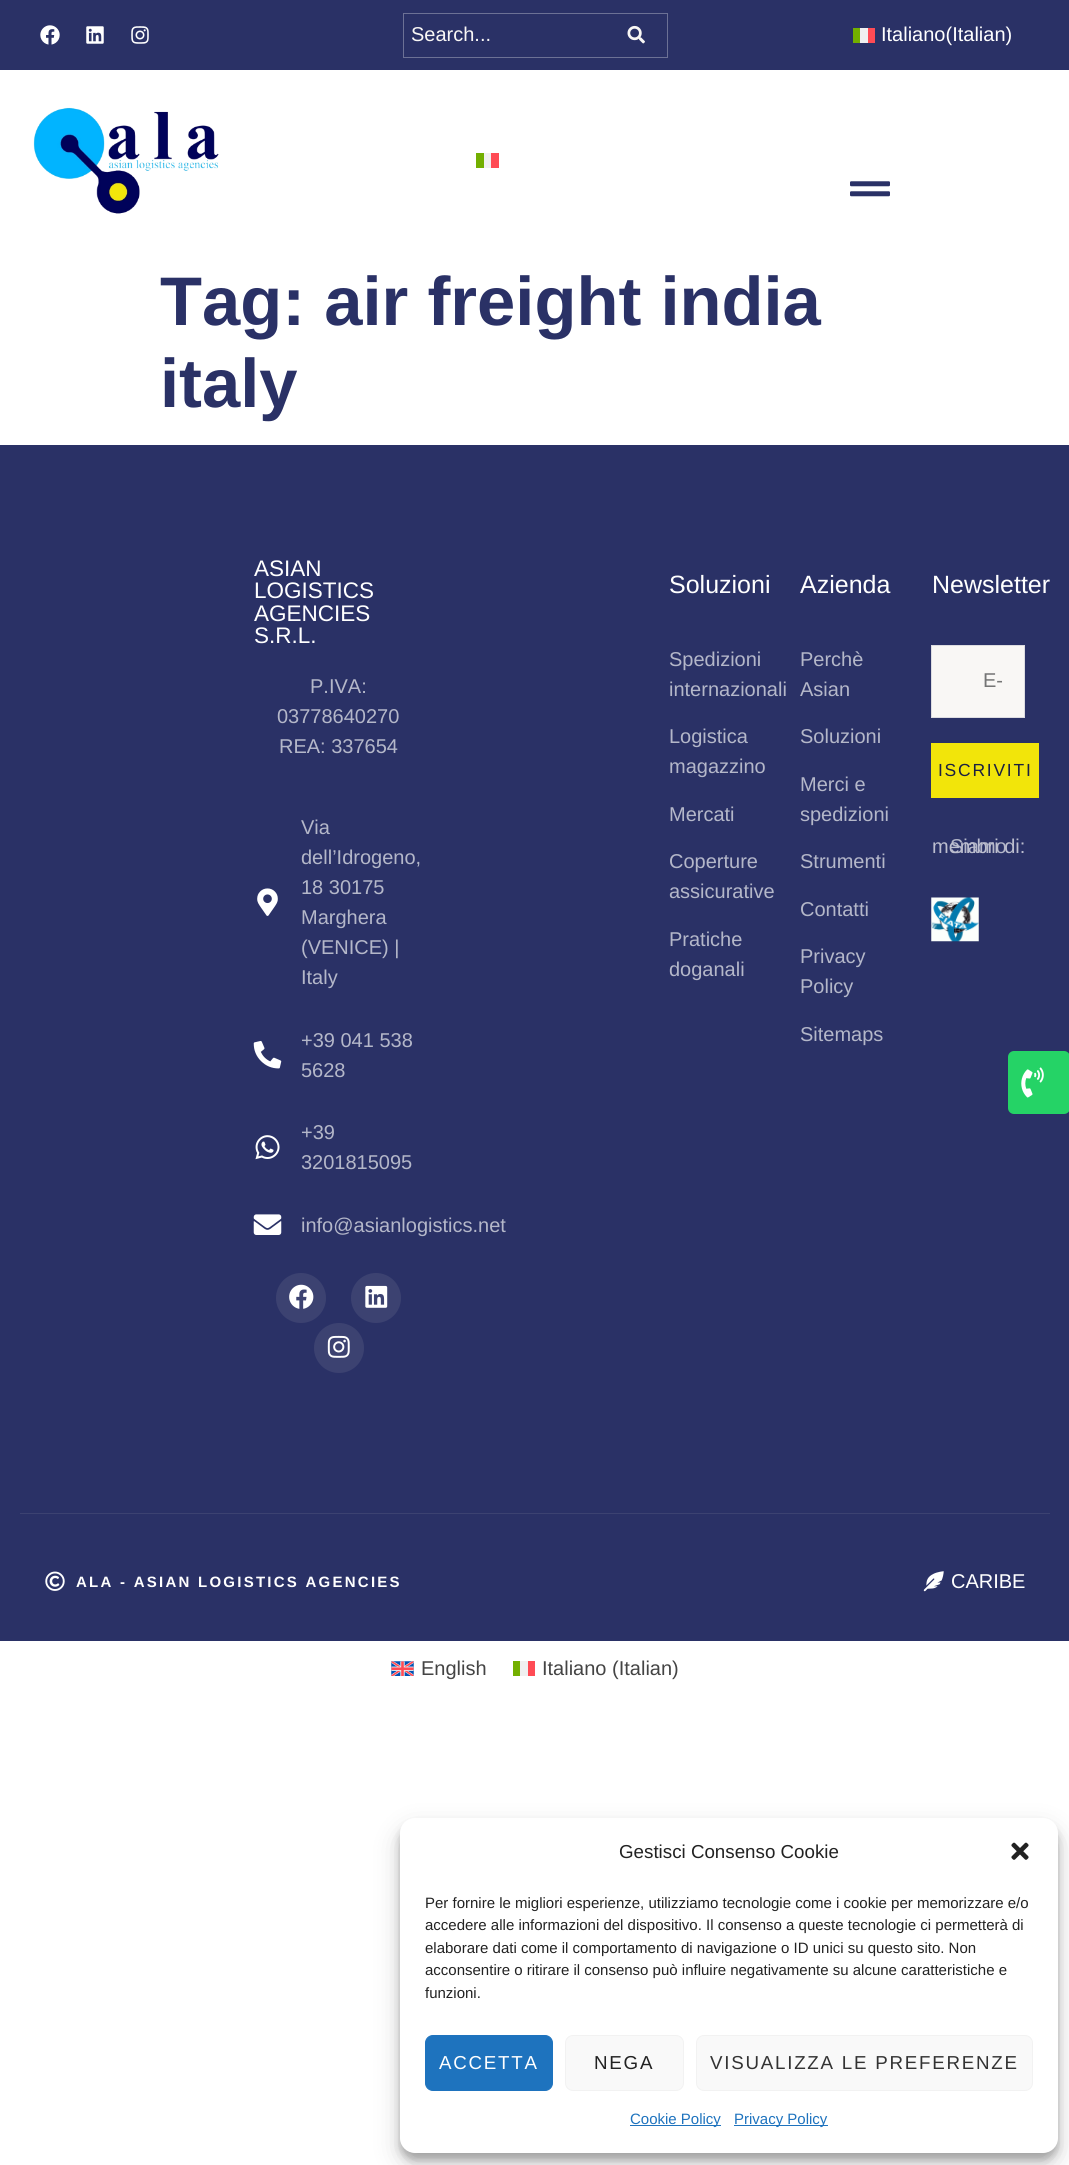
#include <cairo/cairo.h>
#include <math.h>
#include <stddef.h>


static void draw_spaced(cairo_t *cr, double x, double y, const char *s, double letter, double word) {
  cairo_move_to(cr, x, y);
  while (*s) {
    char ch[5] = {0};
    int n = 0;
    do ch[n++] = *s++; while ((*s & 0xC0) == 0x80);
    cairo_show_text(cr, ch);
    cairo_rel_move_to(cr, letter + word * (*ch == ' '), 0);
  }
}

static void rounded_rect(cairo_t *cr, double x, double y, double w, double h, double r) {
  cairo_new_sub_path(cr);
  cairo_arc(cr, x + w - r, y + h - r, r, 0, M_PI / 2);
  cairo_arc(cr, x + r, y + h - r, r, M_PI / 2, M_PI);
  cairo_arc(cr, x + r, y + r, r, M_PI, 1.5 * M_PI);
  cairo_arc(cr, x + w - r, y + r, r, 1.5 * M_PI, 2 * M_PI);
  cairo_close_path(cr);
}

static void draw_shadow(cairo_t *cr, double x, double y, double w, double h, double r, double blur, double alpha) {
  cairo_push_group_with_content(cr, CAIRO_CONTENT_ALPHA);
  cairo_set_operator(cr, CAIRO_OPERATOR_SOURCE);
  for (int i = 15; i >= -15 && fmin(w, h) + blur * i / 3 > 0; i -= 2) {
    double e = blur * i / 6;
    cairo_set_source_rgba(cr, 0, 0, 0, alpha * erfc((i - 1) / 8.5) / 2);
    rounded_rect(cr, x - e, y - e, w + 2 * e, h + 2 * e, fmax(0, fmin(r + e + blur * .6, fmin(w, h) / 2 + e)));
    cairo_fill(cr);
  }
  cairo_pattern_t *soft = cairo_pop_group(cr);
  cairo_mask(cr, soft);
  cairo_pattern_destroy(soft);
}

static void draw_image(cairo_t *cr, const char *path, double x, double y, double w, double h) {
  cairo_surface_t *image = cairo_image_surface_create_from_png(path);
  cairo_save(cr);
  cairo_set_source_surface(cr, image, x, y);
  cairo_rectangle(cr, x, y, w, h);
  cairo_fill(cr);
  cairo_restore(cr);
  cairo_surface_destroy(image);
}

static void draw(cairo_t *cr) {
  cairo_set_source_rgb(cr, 1, 1, 1);
  cairo_paint(cr);
  cairo_set_source_rgb(cr, 42 / 255.0, 49 / 255.0, 102 / 255.0);
  cairo_rectangle(cr, 0, 0, 1069, 70);
  cairo_fill(cr);
  draw_image(cr, "images/1.png", 40, 25, 20, 20);
  draw_image(cr, "images/2.png", 86, 26, 18, 18);
  draw_image(cr, "images/3.png", 131, 26, 18, 18);
  cairo_rectangle(cr, 403.5, 13.5, 264, 44);
  cairo_set_source_rgb(cr, 108 / 255.0, 113 / 255.0, 149 / 255.0);
  cairo_set_line_width(cr, 1);
  cairo_stroke(cr);
  draw_image(cr, "images/4.png", 627, 25, 18, 19);
  cairo_set_source_rgb(cr, 240 / 255.0, 240 / 255.0, 240 / 255.0);
  cairo_rectangle(cr, 860, 28, 8, 15);
  cairo_fill(cr);
  cairo_set_source_rgb(cr, 1, 75 / 255.0, 85 / 255.0);
  cairo_rectangle(cr, 868, 28, 7, 15);
  cairo_fill(cr);
  cairo_set_source_rgb(cr, 115 / 255.0, 175 / 255.0, 0);
  cairo_rectangle(cr, 853, 28, 7, 15);
  cairo_fill(cr);
  draw_image(cr, "images/5.png", 33, 107, 186, 107);
  cairo_set_source_rgb(cr, 240 / 255.0, 240 / 255.0, 240 / 255.0);
  cairo_rectangle(cr, 484, 153, 7, 15);
  cairo_fill(cr);
  cairo_set_source_rgb(cr, 1, 75 / 255.0, 85 / 255.0);
  cairo_rectangle(cr, 491, 153, 8, 15);
  cairo_fill(cr);
  cairo_set_source_rgb(cr, 115 / 255.0, 175 / 255.0, 0);
  cairo_rectangle(cr, 476, 153, 8, 15);
  cairo_fill(cr);
  draw_image(cr, "images/6.png", 850, 181, 40, 16);
  cairo_set_source_rgb(cr, 42 / 255.0, 49 / 255.0, 102 / 255.0);
  cairo_rectangle(cr, 0, 445, 1069, 1196);
  cairo_fill(cr);
  draw_image(cr, "images/7.png", 257, 888, 21, 28);
  draw_image(cr, "images/8.png", 253, 1041, 29, 28);
  draw_image(cr, "images/9.png", 255, 1135, 25, 25);
  draw_image(cr, "images/10.png", 253, 1214, 29, 21);
  cairo_set_source_rgb(cr, 60 / 255.0, 66 / 255.0, 113 / 255.0);
  cairo_arc(cr, 301, 1298, 25, 0, 2 * M_PI);
  cairo_fill(cr);
  draw_image(cr, "images/11.png", 289, 1284, 25, 25);
  cairo_arc(cr, 376, 1298, 25, 0, 2 * M_PI);
  cairo_fill(cr);
  draw_image(cr, "images/12.png", 365, 1285, 23, 23);
  cairo_arc(cr, 339, 1348, 25, 0, 2 * M_PI);
  cairo_fill(cr);
  draw_image(cr, "images/13.png", 327, 1335, 23, 23);
  cairo_set_source_rgb(cr, 249 / 255.0, 247 / 255.0, 245 / 255.0);
  cairo_rectangle(cr, 931.5, 645.5, 93, 72);
  cairo_fill_preserve(cr);
  cairo_set_source_rgb(cr, 221 / 255.0, 220 / 255.0, 225 / 255.0);
  cairo_stroke(cr);
  cairo_set_source_rgb(cr, 242 / 255.0, 229 / 255.0, 10 / 255.0);
  cairo_rectangle(cr, 931, 743, 108, 55);
  cairo_fill(cr);
  draw_image(cr, "images/14.png", 931, 897, 48, 45);
  cairo_set_source_rgb(cr, 60 / 255.0, 66 / 255.0, 113 / 255.0);
  cairo_rectangle(cr, 20, 1513, 1030, 1);
  cairo_fill(cr);
  draw_image(cr, "images/15.png", 45, 1571, 20, 20);
  draw_image(cr, "images/16.png", 923, 1571, 21, 21);
  cairo_set_source_rgb(cr, 37 / 255.0, 211 / 255.0, 102 / 255.0);
  rounded_rect(cr, 1008, 1051, 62, 63, 6);
  cairo_fill(cr);
  draw_image(cr, "images/17.png", 1021, 1067, 23, 31);
  draw_image(cr, "images/18.png", 391, 1661, 23, 15);
  cairo_set_source_rgb(cr, 115 / 255.0, 175 / 255.0, 0);
  cairo_rectangle(cr, 513, 1661, 7, 15);
  cairo_fill(cr);
  cairo_set_source_rgb(cr, 240 / 255.0, 240 / 255.0, 240 / 255.0);
  cairo_rectangle(cr, 520, 1661, 8, 15);
  cairo_fill(cr);
  cairo_set_source_rgb(cr, 1, 75 / 255.0, 85 / 255.0);
  cairo_rectangle(cr, 528, 1661, 7, 15);
  cairo_fill(cr);
  cairo_set_source_rgb(cr, 0, 0, 0);
  draw_shadow(cr, 400, 1825, 658, 335, 15, 4, 0.23);
  draw_shadow(cr, 400, 1830, 658, 335, 15, 12.5, 0.19);
  cairo_set_source_rgb(cr, 1, 1, 1);
  rounded_rect(cr, 400, 1818, 658, 335, 15);
  cairo_fill(cr);
  draw_image(cr, "images/19.png", 1011, 1842, 18, 18);
  cairo_set_source_rgb(cr, 30 / 255.0, 115 / 255.0, 190 / 255.0);
  rounded_rect(cr, 425.5, 2035.5, 127, 55, 7.5);
  cairo_fill_preserve(cr);
  cairo_stroke(cr);
  cairo_set_source_rgb(cr, 249 / 255.0, 249 / 255.0, 249 / 255.0);
  rounded_rect(cr, 565.5, 2035.5, 118, 55, 7.5);
  cairo_fill_preserve(cr);
  cairo_set_source_rgb(cr, 242 / 255.0, 242 / 255.0, 242 / 255.0);
  cairo_stroke(cr);
  cairo_set_source_rgb(cr, 249 / 255.0, 249 / 255.0, 249 / 255.0);
  rounded_rect(cr, 696.5, 2035.5, 336, 55, 7.5);
  cairo_fill_preserve(cr);
  cairo_set_source_rgb(cr, 242 / 255.0, 242 / 255.0, 242 / 255.0);
  cairo_stroke(cr);
  cairo_set_source_rgb(cr, 30 / 255.0, 115 / 255.0, 190 / 255.0);
  cairo_rectangle(cr, 630, 2125, 91, 1);
  cairo_fill(cr);
  cairo_rectangle(cr, 734, 2125, 94, 1);
  cairo_fill(cr);
  cairo_select_font_face(cr, "Liberation Sans", CAIRO_FONT_SLANT_NORMAL, CAIRO_FONT_WEIGHT_NORMAL);
  cairo_set_font_size(cr, 20);
  cairo_set_source_rgb(cr, 249 / 255.0, 247 / 255.0, 245 / 255.0);
  cairo_move_to(cr, 411, 41);
  cairo_show_text(cr, "Search...");
  cairo_set_source_rgb(cr, 1, 1, 1);
  cairo_move_to(cr, 881, 41);
  cairo_show_text(cr, "Italiano(Italian)");
  cairo_select_font_face(cr, "Liberation Sans", CAIRO_FONT_SLANT_NORMAL, CAIRO_FONT_WEIGHT_BOLD);
  cairo_set_font_size(cr, 68.75);
  cairo_set_source_rgb(cr, 42 / 255.0, 49 / 255.0, 102 / 255.0);
  cairo_move_to(cr, 160, 325);
  cairo_show_text(cr, "Tag: air freight india");
  cairo_move_to(cr, 160, 407);
  cairo_show_text(cr, "italy");
  cairo_select_font_face(cr, "Liberation Sans", CAIRO_FONT_SLANT_NORMAL, CAIRO_FONT_WEIGHT_NORMAL);
  cairo_set_font_size(cr, 22.5);
  cairo_set_source_rgb(cr, 1, 1, 1);
  cairo_move_to(cr, 254, 576);
  cairo_show_text(cr, "ASIAN");
  cairo_move_to(cr, 254, 598);
  cairo_show_text(cr, "LOGISTICS");
  cairo_move_to(cr, 254, 621);
  cairo_show_text(cr, "AGENCIES");
  cairo_move_to(cr, 254, 643);
  cairo_show_text(cr, "S.R.L.");
  cairo_set_font_size(cr, 20);
  cairo_set_source_rgb(cr, 180 / 255.0, 183 / 255.0, 201 / 255.0);
  cairo_move_to(cr, 310, 693);
  cairo_show_text(cr, "P.IVA:");
  cairo_move_to(cr, 277, 723);
  cairo_show_text(cr, "03778640270");
  cairo_move_to(cr, 279, 753);
  cairo_show_text(cr, "REA: 337654");
  cairo_move_to(cr, 301, 834);
  cairo_show_text(cr, "Via");
  cairo_move_to(cr, 301, 864);
  cairo_show_text(cr, "dell’Idrogeno,");
  cairo_move_to(cr, 301, 894);
  cairo_show_text(cr, "18 30175");
  cairo_move_to(cr, 301, 924);
  cairo_show_text(cr, "Marghera");
  cairo_move_to(cr, 301, 954);
  cairo_show_text(cr, "(VENICE) |");
  cairo_move_to(cr, 301, 984);
  cairo_show_text(cr, "Italy");
  cairo_move_to(cr, 301, 1047);
  cairo_show_text(cr, "+39 041 538");
  cairo_move_to(cr, 301, 1077);
  cairo_show_text(cr, "5628");
  cairo_move_to(cr, 301, 1139);
  cairo_show_text(cr, "+39");
  cairo_move_to(cr, 301, 1169);
  cairo_show_text(cr, "3201815095");
  cairo_move_to(cr, 301, 1232);
  cairo_show_text(cr, "info@asianlogistics.net");
  cairo_set_font_size(cr, 25);
  cairo_set_source_rgb(cr, 1, 1, 1);
  cairo_move_to(cr, 669, 593);
  cairo_show_text(cr, "Soluzioni");
  cairo_set_font_size(cr, 20);
  cairo_set_source_rgb(cr, 180 / 255.0, 183 / 255.0, 201 / 255.0);
  cairo_move_to(cr, 669, 666);
  cairo_show_text(cr, "Spedizioni");
  cairo_move_to(cr, 669, 696);
  cairo_show_text(cr, "internazionali");
  cairo_move_to(cr, 669, 743);
  cairo_show_text(cr, "Logistica");
  cairo_move_to(cr, 669, 773);
  cairo_show_text(cr, "magazzino");
  cairo_move_to(cr, 669, 821);
  cairo_show_text(cr, "Mercati");
  cairo_move_to(cr, 669, 868);
  cairo_show_text(cr, "Coperture");
  cairo_move_to(cr, 669, 898);
  cairo_show_text(cr, "assicurative");
  cairo_move_to(cr, 669, 946);
  cairo_show_text(cr, "Pratiche");
  cairo_move_to(cr, 669, 976);
  cairo_show_text(cr, "doganali");
  cairo_set_font_size(cr, 25);
  cairo_set_source_rgb(cr, 1, 1, 1);
  cairo_move_to(cr, 800, 593);
  cairo_show_text(cr, "Azienda");
  cairo_set_font_size(cr, 20);
  cairo_set_source_rgb(cr, 180 / 255.0, 183 / 255.0, 201 / 255.0);
  cairo_move_to(cr, 800, 666);
  cairo_show_text(cr, "Perchè");
  cairo_move_to(cr, 800, 696);
  cairo_show_text(cr, "Asian");
  cairo_move_to(cr, 800, 743);
  cairo_show_text(cr, "Soluzioni");
  cairo_move_to(cr, 800, 791);
  cairo_show_text(cr, "Merci e");
  cairo_move_to(cr, 800, 821);
  cairo_show_text(cr, "spedizioni");
  cairo_move_to(cr, 800, 868);
  cairo_show_text(cr, "Strumenti");
  cairo_move_to(cr, 800, 916);
  cairo_show_text(cr, "Contatti");
  cairo_move_to(cr, 800, 963);
  cairo_show_text(cr, "Privacy");
  cairo_move_to(cr, 800, 993);
  cairo_show_text(cr, "Policy");
  cairo_move_to(cr, 800, 1041);
  cairo_show_text(cr, "Sitemaps");
  cairo_set_font_size(cr, 25);
  cairo_set_source_rgb(cr, 1, 1, 1);
  cairo_move_to(cr, 932, 593);
  cairo_show_text(cr, "Newsletter");
  cairo_set_font_size(cr, 20);
  cairo_set_source_rgb(cr, 117 / 255.0, 117 / 255.0, 117 / 255.0);
  cairo_move_to(cr, 983, 687);
  cairo_show_text(cr, "E-");
  cairo_set_font_size(cr, 17.5);
  cairo_set_source_rgb(cr, 27 / 255.0, 32 / 255.0, 66 / 255.0);
  draw_spaced(cr, 938, 776, "ISCRIVITI", 1.75, 0);
  cairo_set_font_size(cr, 20);
  cairo_set_source_rgb(cr, 180 / 255.0, 183 / 255.0, 201 / 255.0);
  cairo_move_to(cr, 950, 853);
  cairo_show_text(cr, "Siamo");
  cairo_set_source_rgb(cr, 188 / 255.0, 190 / 255.0, 207 / 255.0);
  cairo_move_to(cr, 932, 853);
  cairo_show_text(cr, "membri di:");
  cairo_select_font_face(cr, "Liberation Sans", CAIRO_FONT_SLANT_NORMAL, CAIRO_FONT_WEIGHT_BOLD);
  cairo_set_font_size(cr, 15);
  cairo_set_source_rgb(cr, 1, 1, 1);
  draw_spaced(cr, 76, 1587, "ALA - ASIAN LOGISTICS AGENCIES", 2.25, 0);
  cairo_select_font_face(cr, "Liberation Sans", CAIRO_FONT_SLANT_NORMAL, CAIRO_FONT_WEIGHT_NORMAL);
  cairo_set_font_size(cr, 20);
  cairo_move_to(cr, 951, 1588);
  cairo_show_text(cr, "CARIBE");
  cairo_set_source_rgb(cr, 68 / 255.0, 68 / 255.0, 68 / 255.0);
  cairo_move_to(cr, 421, 1675);
  cairo_show_text(cr, "English");
  cairo_move_to(cr, 542, 1675);
  cairo_show_text(cr, "Italiano (Italian)");
  cairo_set_font_size(cr, 18.75);
  cairo_set_source_rgb(cr, 34 / 255.0, 34 / 255.0, 34 / 255.0);
  cairo_move_to(cr, 619, 1858);
  cairo_show_text(cr, "Gestisci Consenso Cookie");
  cairo_set_font_size(cr, 15);
  cairo_move_to(cr, 425, 1908);
  cairo_show_text(cr, "Per fornire le migliori esperienze, utilizziamo tecnologie come i cookie per memorizzare e/o");
  cairo_move_to(cr, 425, 1930);
  cairo_show_text(cr, "accedere alle informazioni del dispositivo. Il consenso a queste tecnologie ci permetterà di");
  cairo_move_to(cr, 425, 1953);
  cairo_show_text(cr, "elaborare dati come il comportamento di navigazione o ID unici su questo sito. Non");
  cairo_move_to(cr, 425, 1975);
  cairo_show_text(cr, "acconsentire o ritirare il consenso può influire negativamente su alcune caratteristiche e");
  cairo_move_to(cr, 425, 1998);
  cairo_show_text(cr, "funzioni.");
  cairo_set_font_size(cr, 18.75);
  cairo_set_source_rgb(cr, 1, 1, 1);
  draw_spaced(cr, 439, 2069, "ACCETTA", 1.75, 0);
  cairo_set_source_rgb(cr, 34 / 255.0, 34 / 255.0, 34 / 255.0);
  draw_spaced(cr, 594, 2069, "NEGA", 1.75, 0);
  cairo_set_source_rgb(cr, 51 / 255.0, 51 / 255.0, 51 / 255.0);
  draw_spaced(cr, 710, 2069, "VISUALIZZA LE PREFERENZE", 1.75, 0);
  cairo_set_font_size(cr, 15);
  cairo_set_source_rgb(cr, 30 / 255.0, 115 / 255.0, 190 / 255.0);
  cairo_move_to(cr, 630, 2124);
  cairo_show_text(cr, "Cookie Policy");
  cairo_move_to(cr, 734, 2124);
  cairo_show_text(cr, "Privacy Policy");
}

int main(void) {
  cairo_surface_t *surface = cairo_image_surface_create(CAIRO_FORMAT_RGB24, 1069, 2165);
  cairo_t *cr = cairo_create(surface);
  cairo_font_options_t *options = cairo_font_options_create();
  cairo_font_options_set_hint_metrics(options, CAIRO_HINT_METRICS_OFF);
  cairo_font_options_set_hint_style(options, CAIRO_HINT_STYLE_NONE);
  cairo_set_font_options(cr, options);
  cairo_set_miter_limit(cr, 4);
  draw(cr);
  cairo_surface_write_to_png(surface, "out.png");
  cairo_font_options_destroy(options);
  cairo_destroy(cr);
  cairo_surface_destroy(surface);
  return 0;
}
